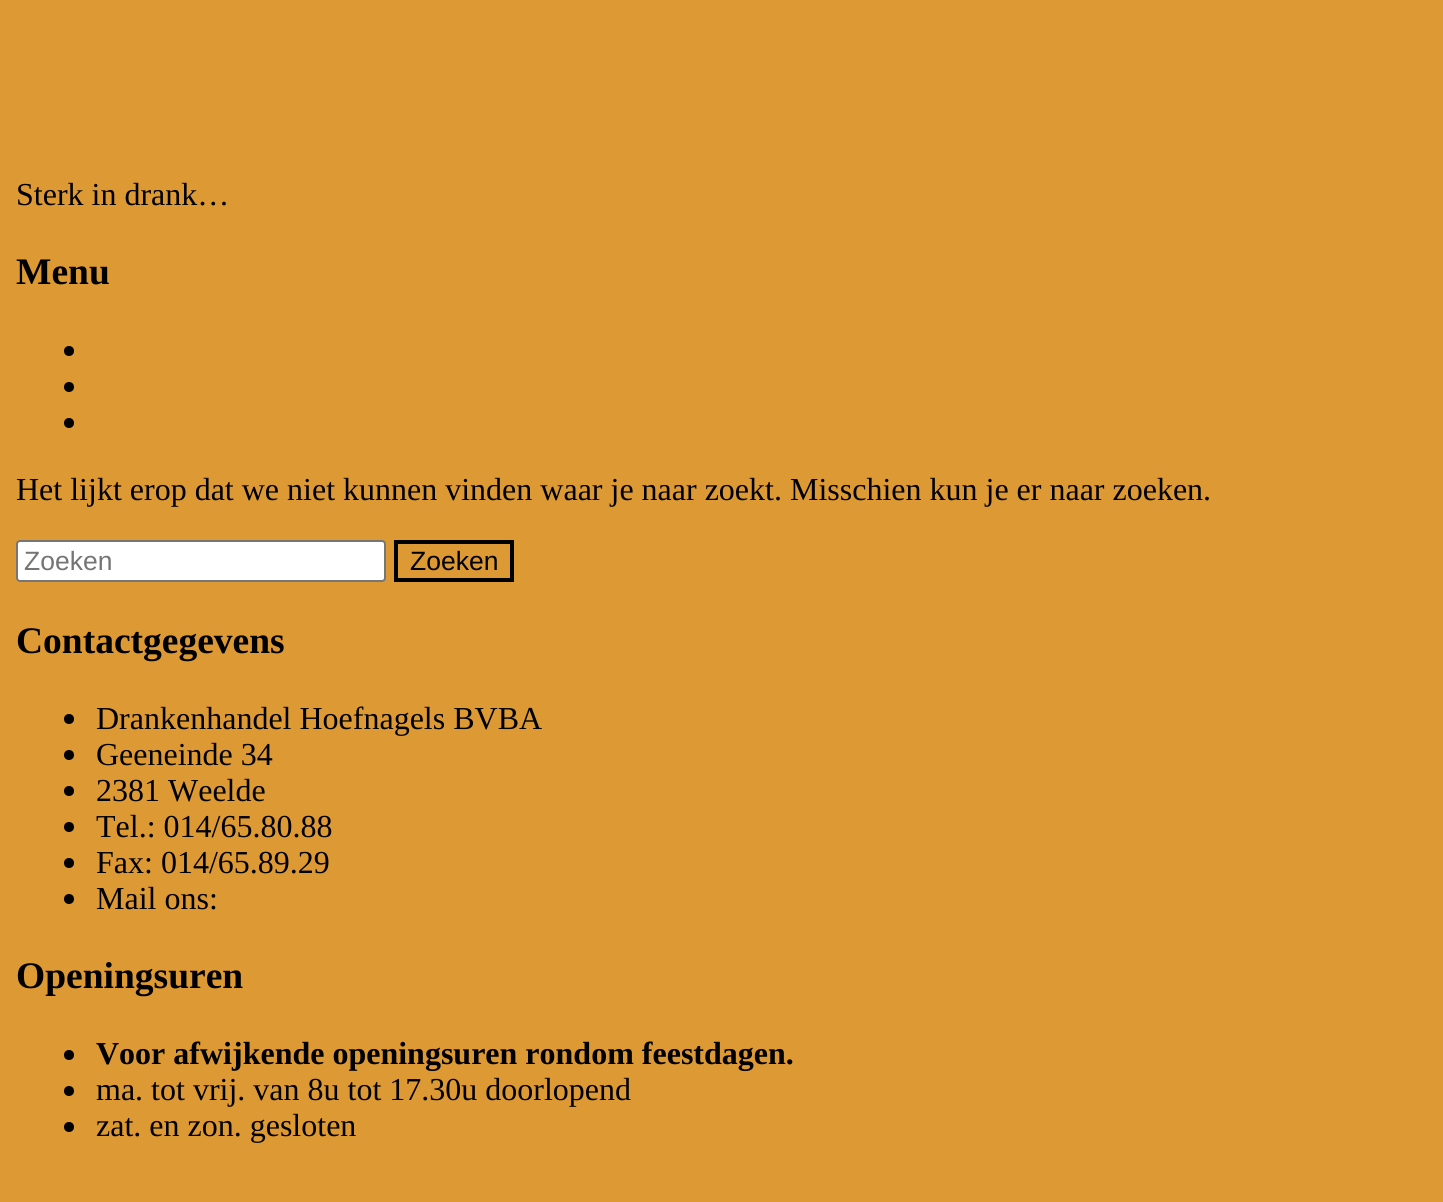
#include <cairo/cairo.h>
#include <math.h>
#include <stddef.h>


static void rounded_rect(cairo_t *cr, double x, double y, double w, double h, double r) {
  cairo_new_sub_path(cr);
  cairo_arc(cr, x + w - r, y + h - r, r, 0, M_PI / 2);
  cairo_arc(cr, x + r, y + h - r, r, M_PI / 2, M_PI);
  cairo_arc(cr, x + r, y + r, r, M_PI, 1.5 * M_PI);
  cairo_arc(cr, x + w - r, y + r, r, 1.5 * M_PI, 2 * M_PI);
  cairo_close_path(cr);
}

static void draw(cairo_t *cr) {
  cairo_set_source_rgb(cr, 221 / 255.0, 153 / 255.0, 51 / 255.0);
  cairo_paint(cr);
  cairo_set_source_rgb(cr, 0, 0, 0);
  cairo_arc(cr, 69, 351, 5, 0, 2 * M_PI);
  cairo_fill(cr);
  cairo_arc(cr, 69, 387, 5, 0, 2 * M_PI);
  cairo_fill(cr);
  cairo_arc(cr, 69, 423, 5, 0, 2 * M_PI);
  cairo_fill(cr);
  cairo_set_source_rgb(cr, 1, 1, 1);
  rounded_rect(cr, 17, 541, 368, 40, 3);
  cairo_fill_preserve(cr);
  cairo_set_source_rgb(cr, 118 / 255.0, 118 / 255.0, 118 / 255.0);
  cairo_stroke(cr);
  cairo_rectangle(cr, 396, 542, 116, 38);
  cairo_set_source_rgb(cr, 0, 0, 0);
  cairo_set_line_width(cr, 4);
  cairo_stroke(cr);
  cairo_arc(cr, 69, 719, 5, 0, 2 * M_PI);
  cairo_fill(cr);
  cairo_arc(cr, 69, 755, 5, 0, 2 * M_PI);
  cairo_fill(cr);
  cairo_arc(cr, 69, 791, 5, 0, 2 * M_PI);
  cairo_fill(cr);
  cairo_arc(cr, 69, 827, 5, 0, 2 * M_PI);
  cairo_fill(cr);
  cairo_arc(cr, 69, 863, 5, 0, 2 * M_PI);
  cairo_fill(cr);
  cairo_arc(cr, 69, 899, 5, 0, 2 * M_PI);
  cairo_fill(cr);
  cairo_arc(cr, 69, 1055, 5, 0, 2 * M_PI);
  cairo_fill(cr);
  cairo_arc(cr, 69, 1091, 5, 0, 2 * M_PI);
  cairo_fill(cr);
  cairo_arc(cr, 69, 1127, 5, 0, 2 * M_PI);
  cairo_fill(cr);
  cairo_select_font_face(cr, "Liberation Serif", CAIRO_FONT_SLANT_NORMAL, CAIRO_FONT_WEIGHT_NORMAL);
  cairo_set_font_size(cr, 32);
  cairo_move_to(cr, 16, 205);
  cairo_show_text(cr, "Sterk in drank…");
  cairo_select_font_face(cr, "Liberation Serif", CAIRO_FONT_SLANT_NORMAL, CAIRO_FONT_WEIGHT_BOLD);
  cairo_set_font_size(cr, 37.5);
  cairo_move_to(cr, 16, 284);
  cairo_show_text(cr, "Menu");
  cairo_select_font_face(cr, "Liberation Serif", CAIRO_FONT_SLANT_NORMAL, CAIRO_FONT_WEIGHT_NORMAL);
  cairo_set_font_size(cr, 32);
  cairo_move_to(cr, 16, 500);
  cairo_show_text(cr, "Het lijkt erop dat we niet kunnen vinden waar je naar zoekt. Misschien kun je er naar zoeken.");
  cairo_select_font_face(cr, "Liberation Sans", CAIRO_FONT_SLANT_NORMAL, CAIRO_FONT_WEIGHT_NORMAL);
  cairo_set_font_size(cr, 26.5);
  cairo_set_source_rgb(cr, 117 / 255.0, 117 / 255.0, 117 / 255.0);
  cairo_move_to(cr, 24, 570);
  cairo_show_text(cr, "Zoeken");
  cairo_set_source_rgb(cr, 0, 0, 0);
  cairo_move_to(cr, 410, 570);
  cairo_show_text(cr, "Zoeken");
  cairo_select_font_face(cr, "Liberation Serif", CAIRO_FONT_SLANT_NORMAL, CAIRO_FONT_WEIGHT_BOLD);
  cairo_set_font_size(cr, 37.5);
  cairo_move_to(cr, 16, 653);
  cairo_show_text(cr, "Contactgegevens");
  cairo_select_font_face(cr, "Liberation Serif", CAIRO_FONT_SLANT_NORMAL, CAIRO_FONT_WEIGHT_NORMAL);
  cairo_set_font_size(cr, 32);
  cairo_move_to(cr, 96, 729);
  cairo_show_text(cr, "Drankenhandel Hoefnagels BVBA");
  cairo_move_to(cr, 96, 765);
  cairo_show_text(cr, "Geeneinde 34");
  cairo_move_to(cr, 96, 801);
  cairo_show_text(cr, "2381 Weelde");
  cairo_move_to(cr, 96, 837);
  cairo_show_text(cr, "Tel.: 014/65.80.88");
  cairo_move_to(cr, 96, 873);
  cairo_show_text(cr, "Fax: 014/65.89.29");
  cairo_move_to(cr, 96, 909);
  cairo_show_text(cr, "Mail ons:");
  cairo_select_font_face(cr, "Liberation Serif", CAIRO_FONT_SLANT_NORMAL, CAIRO_FONT_WEIGHT_BOLD);
  cairo_set_font_size(cr, 37.5);
  cairo_move_to(cr, 16, 988);
  cairo_show_text(cr, "Openingsuren");
  cairo_set_font_size(cr, 32);
  cairo_move_to(cr, 96, 1064);
  cairo_show_text(cr, "Voor afwijkende openingsuren rondom feestdagen.");
  cairo_select_font_face(cr, "Liberation Serif", CAIRO_FONT_SLANT_NORMAL, CAIRO_FONT_WEIGHT_NORMAL);
  cairo_move_to(cr, 96, 1100);
  cairo_show_text(cr, "ma. tot vrij. van 8u tot 17.30u doorlopend");
  cairo_move_to(cr, 96, 1136);
  cairo_show_text(cr, "zat. en zon. gesloten");
}

int main(void) {
  cairo_surface_t *surface = cairo_image_surface_create(CAIRO_FORMAT_RGB24, 1443, 1202);
  cairo_t *cr = cairo_create(surface);
  cairo_font_options_t *options = cairo_font_options_create();
  cairo_font_options_set_hint_metrics(options, CAIRO_HINT_METRICS_OFF);
  cairo_font_options_set_hint_style(options, CAIRO_HINT_STYLE_NONE);
  cairo_set_font_options(cr, options);
  cairo_set_miter_limit(cr, 4);
  draw(cr);
  cairo_surface_write_to_png(surface, "out.png");
  cairo_font_options_destroy(options);
  cairo_destroy(cr);
  cairo_surface_destroy(surface);
  return 0;
}
